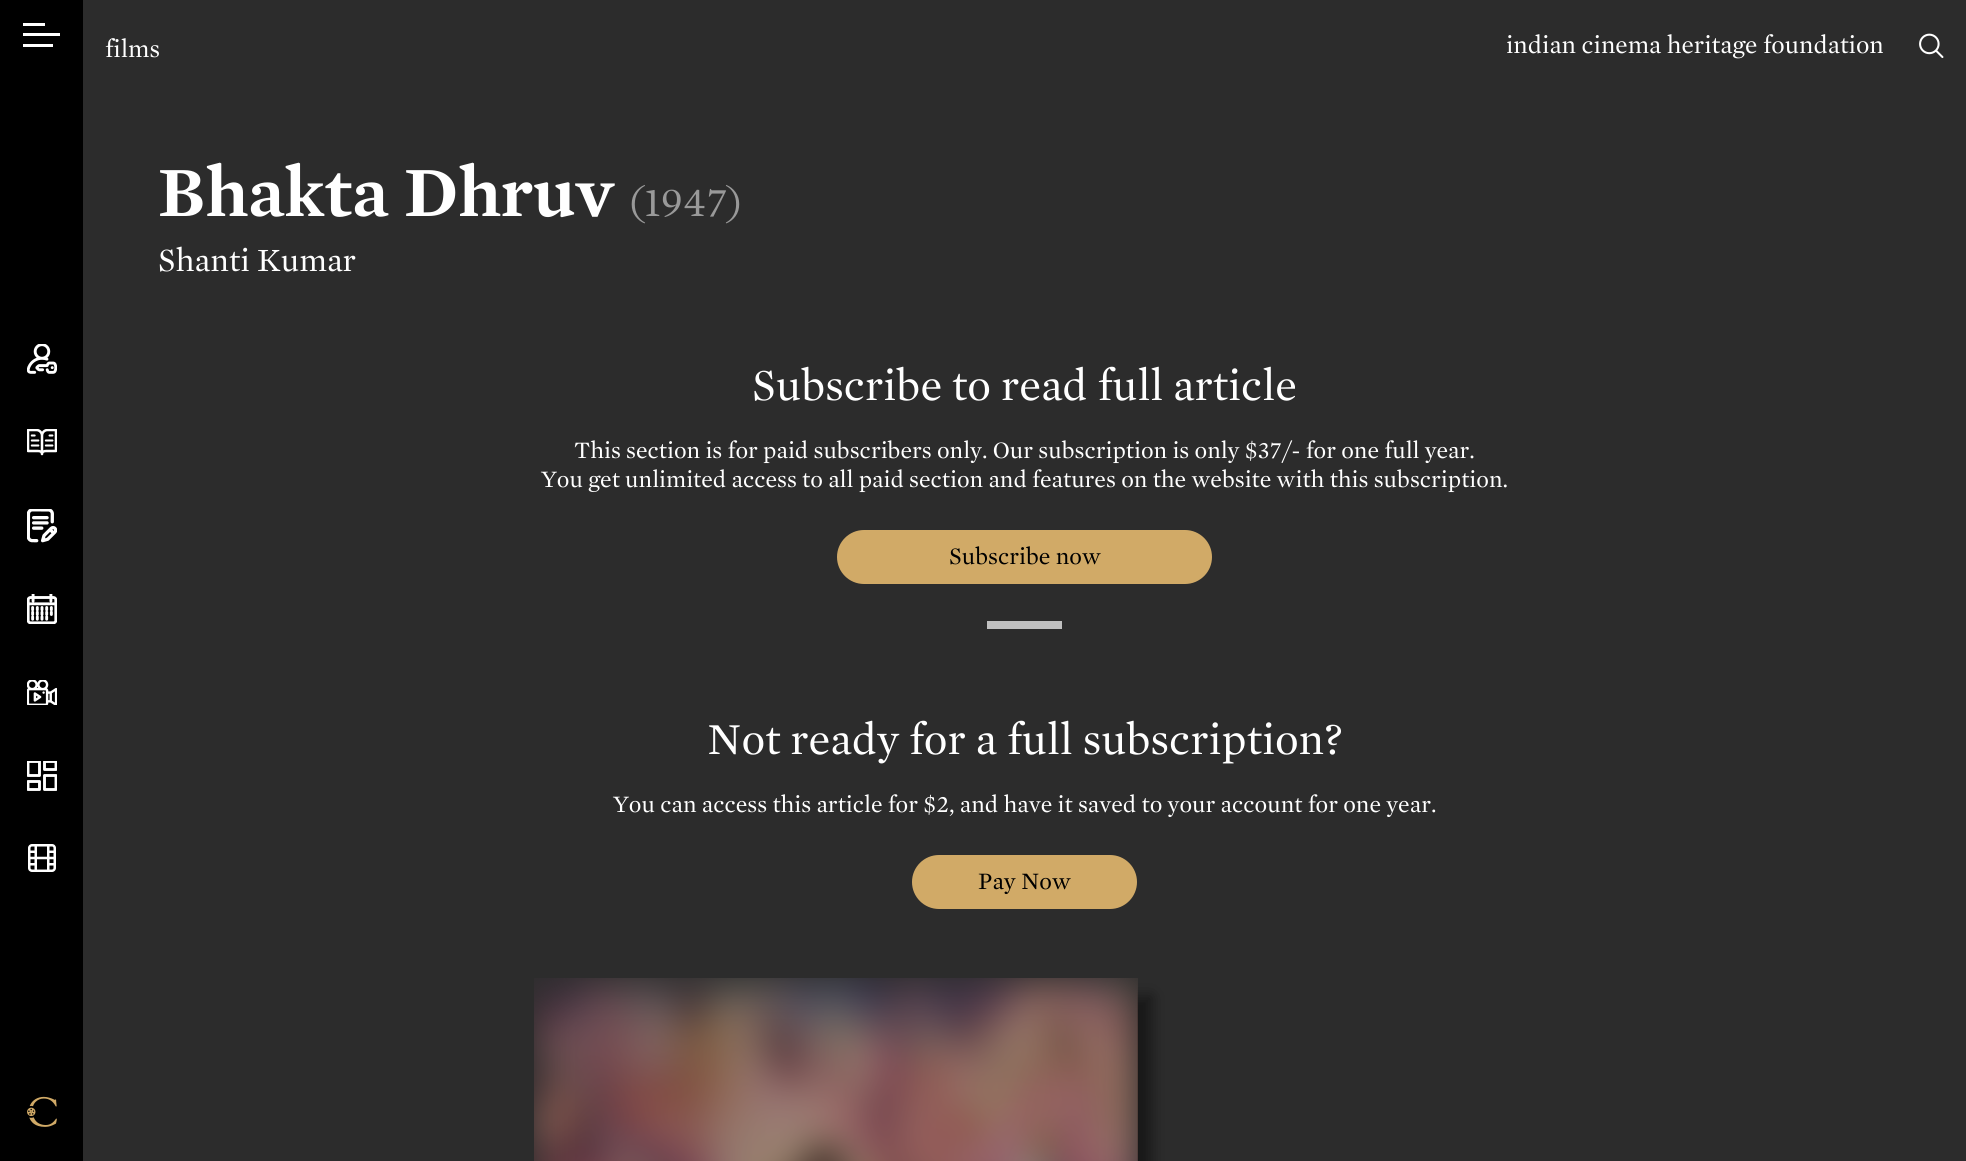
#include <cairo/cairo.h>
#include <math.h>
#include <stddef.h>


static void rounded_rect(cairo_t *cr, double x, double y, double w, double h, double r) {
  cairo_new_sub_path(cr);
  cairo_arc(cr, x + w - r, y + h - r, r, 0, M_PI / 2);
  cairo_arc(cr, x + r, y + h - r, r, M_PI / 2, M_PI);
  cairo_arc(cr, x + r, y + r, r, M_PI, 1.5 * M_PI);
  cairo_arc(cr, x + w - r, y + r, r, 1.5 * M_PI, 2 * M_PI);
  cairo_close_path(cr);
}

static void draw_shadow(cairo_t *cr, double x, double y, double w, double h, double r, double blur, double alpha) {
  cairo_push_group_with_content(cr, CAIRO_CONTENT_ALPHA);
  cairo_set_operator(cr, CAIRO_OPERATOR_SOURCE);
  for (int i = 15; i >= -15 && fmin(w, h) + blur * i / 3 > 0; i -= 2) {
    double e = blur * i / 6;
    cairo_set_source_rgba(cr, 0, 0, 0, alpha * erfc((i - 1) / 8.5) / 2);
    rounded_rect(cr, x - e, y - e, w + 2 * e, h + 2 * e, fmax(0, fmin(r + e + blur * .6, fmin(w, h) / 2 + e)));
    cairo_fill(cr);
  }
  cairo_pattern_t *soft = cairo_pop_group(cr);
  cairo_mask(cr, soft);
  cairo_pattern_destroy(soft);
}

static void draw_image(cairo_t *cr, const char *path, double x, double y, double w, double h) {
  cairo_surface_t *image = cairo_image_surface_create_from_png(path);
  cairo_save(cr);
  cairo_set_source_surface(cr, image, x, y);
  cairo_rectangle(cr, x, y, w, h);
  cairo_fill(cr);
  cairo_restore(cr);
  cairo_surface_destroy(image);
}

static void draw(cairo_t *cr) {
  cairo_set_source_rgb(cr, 44 / 255.0, 44 / 255.0, 44 / 255.0);
  cairo_paint(cr);
  cairo_save(cr);
  cairo_rectangle(cr, 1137, 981, 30, 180);
  cairo_clip(cr);
  cairo_set_source_rgb(cr, 0, 0, 0);
  draw_shadow(cr, 552, 996, 600, 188, 0, 7.5, 0.8);
  cairo_restore(cr);
  draw_image(cr, "images/9.png", 534, 978, 604, 183);
  draw_shadow(cr, 135, 909, 1779, 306, 0, 18, 0.4);
  cairo_set_source_rgb(cr, 0, 0, 0);
  cairo_rectangle(cr, 0, 0, 83, 1161);
  cairo_fill(cr);
  cairo_set_source_rgb(cr, 1, 1, 1);
  cairo_rectangle(cr, 23, 23, 22, 3);
  cairo_fill(cr);
  cairo_rectangle(cr, 23, 33, 37, 3);
  cairo_fill(cr);
  cairo_rectangle(cr, 23, 44, 30, 3);
  cairo_fill(cr);
  draw_image(cr, "images/1.png", 27, 344, 30, 30);
  draw_image(cr, "images/2.png", 27, 429, 30, 27);
  draw_image(cr, "images/3.png", 27, 509, 30, 34);
  draw_image(cr, "images/4.png", 27, 594, 30, 30);
  draw_image(cr, "images/5.png", 27, 680, 30, 25);
  cairo_save(cr);
  cairo_rectangle(cr, 27, 761, 30, 30);
  cairo_clip(cr);
  cairo_new_path(cr);
  cairo_move_to(cr, 39.5, 775.5);
  cairo_line_to(cr, 28, 775.5);
  cairo_line_to(cr, 28, 761.5);
  cairo_line_to(cr, 39.5, 761.5);
  cairo_close_path(cr);
  cairo_move_to(cr, 39.5, 781.5);
  cairo_line_to(cr, 28, 781.5);
  cairo_line_to(cr, 28, 789.5);
  cairo_line_to(cr, 39.5, 789.5);
  cairo_close_path(cr);
  cairo_move_to(cr, 56, 775.5);
  cairo_line_to(cr, 44.5, 775.5);
  cairo_line_to(cr, 44.5, 789.5);
  cairo_line_to(cr, 56, 789.5);
  cairo_close_path(cr);
  cairo_move_to(cr, 56, 761.5);
  cairo_line_to(cr, 44.5, 761.5);
  cairo_line_to(cr, 44.5, 769.5);
  cairo_line_to(cr, 56, 769.5);
  cairo_close_path(cr);
  cairo_set_line_width(cr, 2.9);
  cairo_set_line_cap(cr, CAIRO_LINE_CAP_ROUND);
  cairo_set_line_join(cr, CAIRO_LINE_JOIN_ROUND);
  cairo_stroke(cr);
  cairo_restore(cr);
  draw_image(cr, "images/6.png", 28, 844, 28, 28);
  draw_image(cr, "images/7.png", 27, 1096, 30, 31);
  draw_image(cr, "images/8.png", 1919, 33, 25, 25);
  cairo_set_source_rgb(cr, 209 / 255.0, 170 / 255.0, 103 / 255.0);
  rounded_rect(cr, 837, 530, 375, 54, 27);
  cairo_fill(cr);
  cairo_set_source_rgb(cr, 192 / 255.0, 192 / 255.0, 192 / 255.0);
  cairo_rectangle(cr, 987, 621, 75, 8);
  cairo_fill(cr);
  cairo_set_source_rgb(cr, 209 / 255.0, 170 / 255.0, 103 / 255.0);
  rounded_rect(cr, 912, 855, 225, 54, 27);
  cairo_fill(cr);
  cairo_select_font_face(cr, "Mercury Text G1", CAIRO_FONT_SLANT_NORMAL, CAIRO_FONT_WEIGHT_NORMAL);
  cairo_set_font_size(cr, 25.5);
  cairo_set_source_rgb(cr, 1, 1, 1);
  cairo_move_to(cr, 105, 57);
  cairo_show_text(cr, "films");
  cairo_select_font_face(cr, "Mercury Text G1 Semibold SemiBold", CAIRO_FONT_SLANT_NORMAL, CAIRO_FONT_WEIGHT_NORMAL);
  cairo_set_font_size(cr, 72);
  cairo_move_to(cr, 158, 216);
  cairo_show_text(cr, "Bhakta Dhruv");
  cairo_select_font_face(cr, "Mercury Text G1", CAIRO_FONT_SLANT_NORMAL, CAIRO_FONT_WEIGHT_NORMAL);
  cairo_set_font_size(cr, 42);
  cairo_set_source_rgb(cr, 153 / 255.0, 153 / 255.0, 153 / 255.0);
  cairo_move_to(cr, 629, 216);
  cairo_show_text(cr, "(1947)");
  cairo_set_font_size(cr, 33);
  cairo_set_source_rgb(cr, 1, 1, 1);
  cairo_move_to(cr, 158, 271);
  cairo_show_text(cr, "Shanti Kumar");
  cairo_set_font_size(cr, 45);
  cairo_move_to(cr, 752, 400);
  cairo_show_text(cr, "Subscribe to read full article");
  cairo_set_font_size(cr, 24);
  cairo_move_to(cr, 574, 458);
  cairo_show_text(cr, "This section is for paid subscribers only. Our subscription is only $37/- for one full year.");
  cairo_move_to(cr, 541, 487);
  cairo_show_text(cr, "You get unlimited access to all paid section and features on the website with this subscription.");
  cairo_set_source_rgb(cr, 0, 0, 0);
  cairo_move_to(cr, 949, 564);
  cairo_show_text(cr, "Subscribe now");
  cairo_set_font_size(cr, 45);
  cairo_set_source_rgb(cr, 1, 1, 1);
  cairo_move_to(cr, 707, 754);
  cairo_show_text(cr, "Not ready for a full subscription?");
  cairo_set_font_size(cr, 24);
  cairo_move_to(cr, 613, 812);
  cairo_show_text(cr, "You can access this article for $2, and have it saved to your account for one year.");
  cairo_set_source_rgb(cr, 0, 0, 0);
  cairo_move_to(cr, 978, 889);
  cairo_show_text(cr, "Pay Now");
  cairo_set_font_size(cr, 25.5);
  cairo_set_source_rgb(cr, 1, 1, 1);
  cairo_move_to(cr, 1506, 53);
  cairo_show_text(cr, "indian cinema heritage foundation");
}

int main(void) {
  cairo_surface_t *surface = cairo_image_surface_create(CAIRO_FORMAT_RGB24, 1966, 1161);
  cairo_t *cr = cairo_create(surface);
  cairo_font_options_t *options = cairo_font_options_create();
  cairo_font_options_set_hint_metrics(options, CAIRO_HINT_METRICS_OFF);
  cairo_font_options_set_hint_style(options, CAIRO_HINT_STYLE_NONE);
  cairo_set_font_options(cr, options);
  cairo_set_miter_limit(cr, 4);
  draw(cr);
  cairo_surface_write_to_png(surface, "out.png");
  cairo_font_options_destroy(options);
  cairo_destroy(cr);
  cairo_surface_destroy(surface);
  return 0;
}
